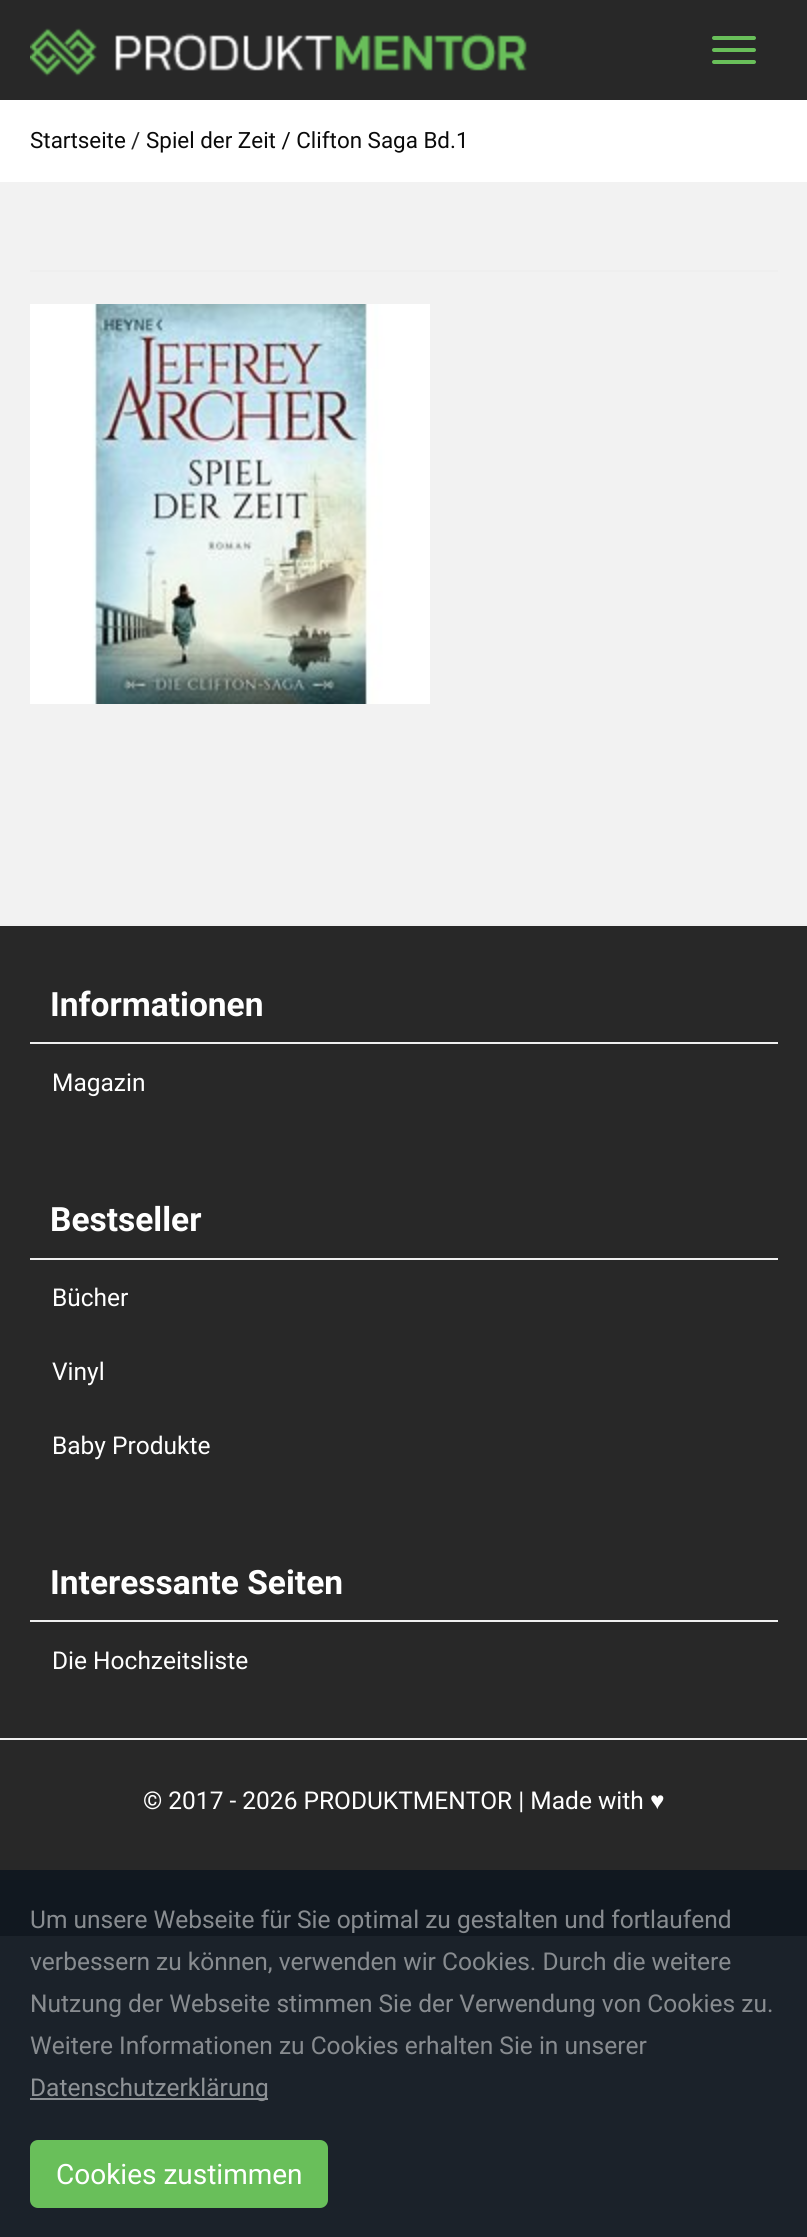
#include <cairo/cairo.h>
#include <math.h>
#include <stddef.h>


static void rounded_rect(cairo_t *cr, double x, double y, double w, double h, double r) {
  cairo_new_sub_path(cr);
  cairo_arc(cr, x + w - r, y + h - r, r, 0, M_PI / 2);
  cairo_arc(cr, x + r, y + h - r, r, M_PI / 2, M_PI);
  cairo_arc(cr, x + r, y + r, r, M_PI, 1.5 * M_PI);
  cairo_arc(cr, x + w - r, y + r, r, 1.5 * M_PI, 2 * M_PI);
  cairo_close_path(cr);
}

static void draw_image(cairo_t *cr, const char *path, double x, double y, double w, double h) {
  cairo_surface_t *image = cairo_image_surface_create_from_png(path);
  cairo_save(cr);
  cairo_set_source_surface(cr, image, x, y);
  cairo_rectangle(cr, x, y, w, h);
  cairo_fill(cr);
  cairo_restore(cr);
  cairo_surface_destroy(image);
}

static void draw(cairo_t *cr) {
  cairo_set_source_rgb(cr, 1, 1, 1);
  cairo_paint(cr);
  cairo_set_source_rgb(cr, 40 / 255.0, 40 / 255.0, 40 / 255.0);
  cairo_rectangle(cr, 0, 0, 807, 100);
  cairo_fill(cr);
  draw_image(cr, "images/1.png", 30, 28, 497, 49);
  cairo_set_source_rgb(cr, 105 / 255.0, 191 / 255.0, 90 / 255.0);
  rounded_rect(cr, 712, 36, 44, 4, 2);
  cairo_fill(cr);
  rounded_rect(cr, 712, 48, 44, 4, 2);
  cairo_fill(cr);
  rounded_rect(cr, 712, 60, 44, 4, 2);
  cairo_fill(cr);
  cairo_set_source_rgb(cr, 242 / 255.0, 242 / 255.0, 242 / 255.0);
  cairo_rectangle(cr, 0, 182, 807, 742);
  cairo_fill(cr);
  cairo_set_source_rgb(cr, 239 / 255.0, 239 / 255.0, 239 / 255.0);
  cairo_rectangle(cr, 30, 270, 748, 2);
  cairo_fill(cr);
  draw_image(cr, "images/2.png", 30, 304, 400, 400);
  cairo_set_source_rgb(cr, 40 / 255.0, 40 / 255.0, 40 / 255.0);
  cairo_rectangle(cr, 0, 926, 807, 812);
  cairo_fill(cr);
  cairo_set_source_rgb(cr, 240 / 255.0, 240 / 255.0, 240 / 255.0);
  cairo_rectangle(cr, 0, 924, 807, 2);
  cairo_fill(cr);
  cairo_set_source_rgb(cr, 239 / 255.0, 239 / 255.0, 239 / 255.0);
  cairo_rectangle(cr, 30, 1042, 748, 2);
  cairo_fill(cr);
  cairo_rectangle(cr, 30, 1258, 748, 2);
  cairo_fill(cr);
  cairo_rectangle(cr, 30, 1620, 748, 2);
  cairo_fill(cr);
  cairo_set_source_rgb(cr, 40 / 255.0, 40 / 255.0, 40 / 255.0);
  cairo_rectangle(cr, 0, 1740, 807, 196);
  cairo_fill(cr);
  cairo_set_source_rgb(cr, 240 / 255.0, 240 / 255.0, 240 / 255.0);
  cairo_rectangle(cr, 0, 1738, 807, 2);
  cairo_fill(cr);
  cairo_set_source_rgba(cr, 16 / 255.0, 24 / 255.0, 32 / 255.0, 0.95);
  cairo_rectangle(cr, 0, 1870, 807, 367);
  cairo_fill(cr);
  cairo_set_source_rgb(cr, 141 / 255.0, 145 / 255.0, 149 / 255.0);
  cairo_rectangle(cr, 30, 2098, 238, 2);
  cairo_fill(cr);
  cairo_set_source_rgb(cr, 105 / 255.0, 191 / 255.0, 90 / 255.0);
  rounded_rect(cr, 31, 2141, 296, 66, 7);
  cairo_fill_preserve(cr);
  cairo_stroke(cr);
  cairo_select_font_face(cr, "Roboto", CAIRO_FONT_SLANT_NORMAL, CAIRO_FONT_WEIGHT_NORMAL);
  cairo_set_font_size(cr, 22.4);
  cairo_set_source_rgb(cr, 10 / 255.0, 10 / 255.0, 10 / 255.0);
  cairo_move_to(cr, 30, 148);
  cairo_show_text(cr, "Startseite");
  cairo_set_source_rgb(cr, 38 / 255.0, 38 / 255.0, 38 / 255.0);
  cairo_move_to(cr, 131, 148);
  cairo_show_text(cr, "/");
  cairo_set_source_rgb(cr, 10 / 255.0, 10 / 255.0, 10 / 255.0);
  cairo_move_to(cr, 146, 148);
  cairo_show_text(cr, "Spiel der Zeit / Clifton Saga Bd.1");
  cairo_select_font_face(cr, "Roboto", CAIRO_FONT_SLANT_NORMAL, CAIRO_FONT_WEIGHT_BOLD);
  cairo_set_font_size(cr, 33.5);
  cairo_set_source_rgb(cr, 1, 1, 1);
  cairo_move_to(cr, 50, 1016);
  cairo_show_text(cr, "Informationen");
  cairo_select_font_face(cr, "Roboto", CAIRO_FONT_SLANT_NORMAL, CAIRO_FONT_WEIGHT_NORMAL);
  cairo_set_font_size(cr, 24.5);
  cairo_move_to(cr, 52, 1091);
  cairo_show_text(cr, "Magazin");
  cairo_select_font_face(cr, "Roboto", CAIRO_FONT_SLANT_NORMAL, CAIRO_FONT_WEIGHT_BOLD);
  cairo_set_font_size(cr, 33.5);
  cairo_move_to(cr, 50, 1231);
  cairo_show_text(cr, "Bestseller");
  cairo_select_font_face(cr, "Roboto", CAIRO_FONT_SLANT_NORMAL, CAIRO_FONT_WEIGHT_NORMAL);
  cairo_set_font_size(cr, 24.5);
  cairo_move_to(cr, 52, 1306);
  cairo_show_text(cr, "Bücher");
  cairo_move_to(cr, 52, 1380);
  cairo_show_text(cr, "Vinyl");
  cairo_move_to(cr, 52, 1454);
  cairo_show_text(cr, "Baby Produkte");
  cairo_select_font_face(cr, "Roboto", CAIRO_FONT_SLANT_NORMAL, CAIRO_FONT_WEIGHT_BOLD);
  cairo_set_font_size(cr, 33.5);
  cairo_move_to(cr, 50, 1594);
  cairo_show_text(cr, "Interessante Seiten");
  cairo_select_font_face(cr, "Roboto", CAIRO_FONT_SLANT_NORMAL, CAIRO_FONT_WEIGHT_NORMAL);
  cairo_set_font_size(cr, 24.5);
  cairo_move_to(cr, 52, 1669);
  cairo_show_text(cr, "Die Hochzeitsliste");
  cairo_move_to(cr, 143, 1809);
  cairo_show_text(cr, "© 2017 - 2026 PRODUKTMENTOR | Made with");
  cairo_select_font_face(cr, "Liberation Sans", CAIRO_FONT_SLANT_NORMAL, CAIRO_FONT_WEIGHT_NORMAL);
  cairo_move_to(cr, 650, 1809);
  cairo_show_text(cr, "♥");
  cairo_select_font_face(cr, "Roboto", CAIRO_FONT_SLANT_NORMAL, CAIRO_FONT_WEIGHT_NORMAL);
  cairo_set_source_rgb(cr, 136 / 255.0, 140 / 255.0, 144 / 255.0);
  cairo_move_to(cr, 30, 1928);
  cairo_show_text(cr, "Um unsere Webseite für Sie optimal zu gestalten und fortlaufend");
  cairo_move_to(cr, 30, 1970);
  cairo_show_text(cr, "verbessern zu können, verwenden wir Cookies. Durch die weitere");
  cairo_move_to(cr, 30, 2012);
  cairo_show_text(cr, "Nutzung der Webseite stimmen Sie der Verwendung von Cookies zu.");
  cairo_move_to(cr, 30, 2054);
  cairo_show_text(cr, "Weitere Informationen zu Cookies erhalten Sie in unserer");
  cairo_set_source_rgb(cr, 142 / 255.0, 146 / 255.0, 150 / 255.0);
  cairo_move_to(cr, 30, 2096);
  cairo_show_text(cr, "Datenschutzerklärung");
  cairo_set_font_size(cr, 28);
  cairo_set_source_rgb(cr, 1, 1, 1);
  cairo_move_to(cr, 56, 2184);
  cairo_show_text(cr, "Cookies zustimmen");
}

int main(void) {
  cairo_surface_t *surface = cairo_image_surface_create(CAIRO_FORMAT_RGB24, 807, 2237);
  cairo_t *cr = cairo_create(surface);
  cairo_font_options_t *options = cairo_font_options_create();
  cairo_font_options_set_hint_metrics(options, CAIRO_HINT_METRICS_OFF);
  cairo_font_options_set_hint_style(options, CAIRO_HINT_STYLE_NONE);
  cairo_set_font_options(cr, options);
  cairo_set_miter_limit(cr, 4);
  draw(cr);
  cairo_surface_write_to_png(surface, "out.png");
  cairo_font_options_destroy(options);
  cairo_destroy(cr);
  cairo_surface_destroy(surface);
  return 0;
}
